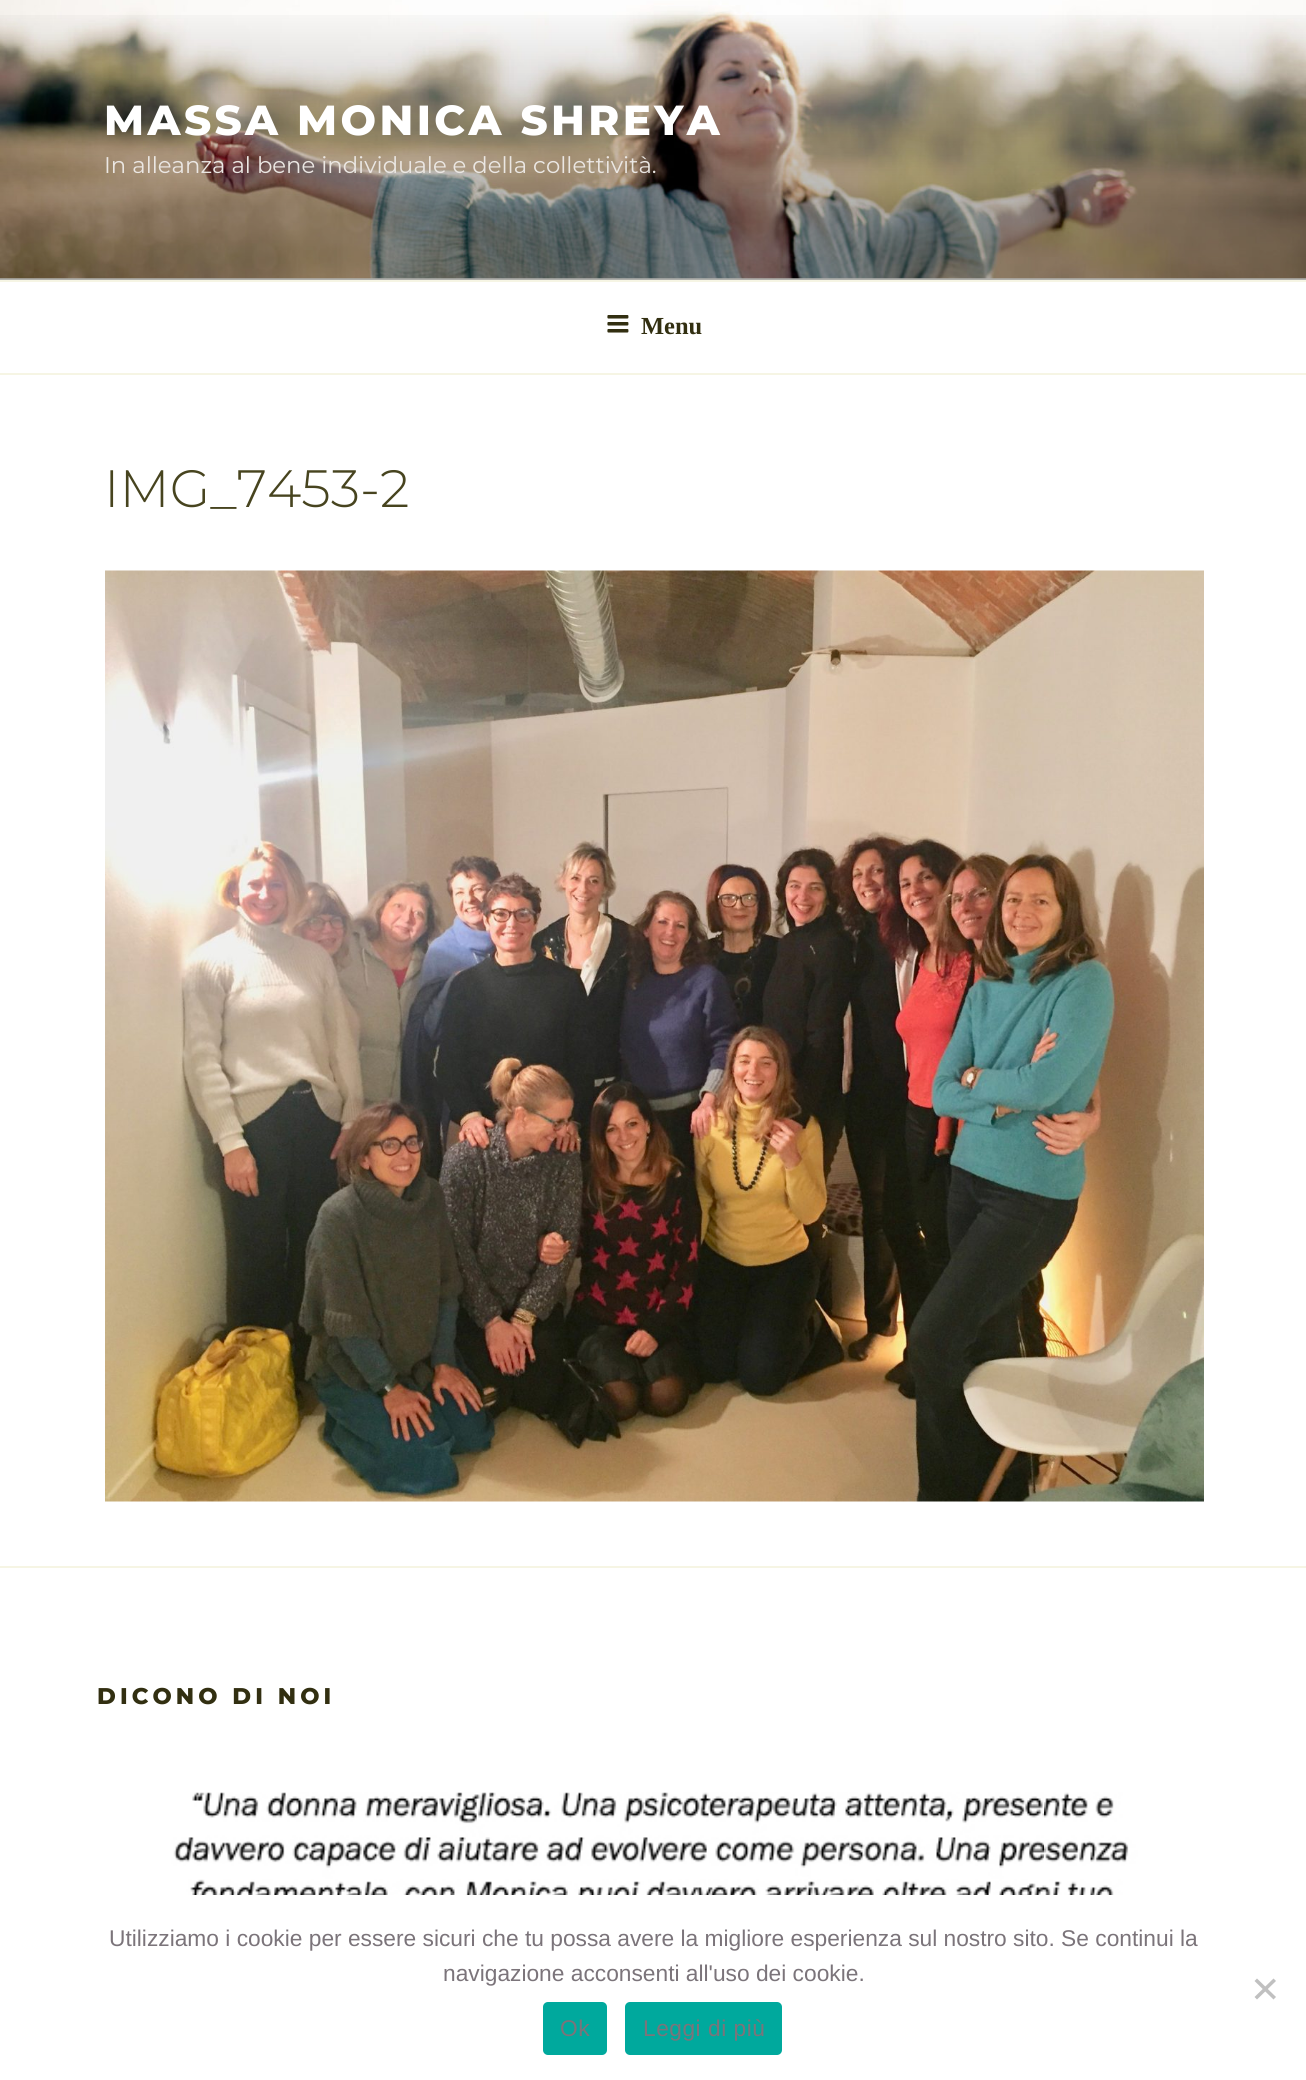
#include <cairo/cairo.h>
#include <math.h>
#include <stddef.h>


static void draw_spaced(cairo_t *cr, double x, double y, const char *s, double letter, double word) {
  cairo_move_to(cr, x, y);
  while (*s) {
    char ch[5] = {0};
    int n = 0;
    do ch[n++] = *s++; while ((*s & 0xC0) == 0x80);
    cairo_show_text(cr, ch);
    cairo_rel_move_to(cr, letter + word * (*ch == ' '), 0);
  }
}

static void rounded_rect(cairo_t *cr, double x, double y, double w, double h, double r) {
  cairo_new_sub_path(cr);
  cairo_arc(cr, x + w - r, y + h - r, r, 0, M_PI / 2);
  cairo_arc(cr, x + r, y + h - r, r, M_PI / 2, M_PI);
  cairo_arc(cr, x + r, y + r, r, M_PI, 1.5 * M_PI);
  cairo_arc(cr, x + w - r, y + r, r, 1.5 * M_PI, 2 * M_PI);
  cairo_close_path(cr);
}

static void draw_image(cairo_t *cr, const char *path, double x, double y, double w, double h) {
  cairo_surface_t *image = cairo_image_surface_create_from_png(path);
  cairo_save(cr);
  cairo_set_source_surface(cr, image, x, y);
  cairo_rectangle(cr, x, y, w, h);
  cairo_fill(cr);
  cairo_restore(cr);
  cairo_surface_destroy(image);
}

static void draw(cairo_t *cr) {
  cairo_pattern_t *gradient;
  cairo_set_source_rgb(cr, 1, 1, 1);
  cairo_paint(cr);
  cairo_set_source_rgb(cr, 252 / 255.0, 252 / 255.0, 247 / 255.0);
  cairo_rectangle(cr, 0, 278, 1306, 2);
  cairo_fill(cr);
  draw_image(cr, "images/1.png", 0, 0, 1306, 279);
  gradient = cairo_pattern_create_linear(654, 0, 654, 280);
  cairo_pattern_add_color_stop_rgba(gradient, 0, 0, 0, 0, 0);
  cairo_pattern_add_color_stop_rgba(gradient, 0.75, 0, 0, 0, 0.3);
  cairo_pattern_add_color_stop_rgba(gradient, 1, 0, 0, 0, 0.3);
  cairo_set_source(cr, gradient);
  cairo_pattern_destroy(gradient);
  cairo_rectangle(cr, 0, 15, 1306, 265);
  cairo_fill(cr);
  cairo_set_source_rgb(cr, 246 / 255.0, 245 / 255.0, 228 / 255.0);
  cairo_rectangle(cr, 0, 280, 1306, 2);
  cairo_fill(cr);
  cairo_rectangle(cr, 0, 373, 1306, 2);
  cairo_fill(cr);
  draw_image(cr, "images/2.png", 607, 315, 22, 18);
  draw_image(cr, "images/3.png", 105, 570, 1099, 932);
  cairo_rectangle(cr, 0, 1566, 1306, 2);
  cairo_fill(cr);
  draw_image(cr, "images/4.png", 166, 1792, 972, 103);
  cairo_set_source_rgb(cr, 192 / 255.0, 192 / 255.0, 192 / 255.0);
  cairo_new_path(cr);
  cairo_move_to(cr, 1273.5, 1978.5);
  cairo_line_to(cr, 1276, 1981);
  cairo_line_to(cr, 1257, 1999.5);
  cairo_line_to(cr, 1254.5, 1997);
  cairo_close_path(cr);
  cairo_fill(cr);
  cairo_new_path(cr);
  cairo_move_to(cr, 1254.5, 1981);
  cairo_line_to(cr, 1257, 1978.5);
  cairo_line_to(cr, 1276, 1997);
  cairo_line_to(cr, 1273.5, 1999.5);
  cairo_close_path(cr);
  cairo_fill(cr);
  cairo_set_source_rgb(cr, 0, 169 / 255.0, 157 / 255.0);
  rounded_rect(cr, 543, 2002, 64, 53, 5);
  cairo_fill(cr);
  rounded_rect(cr, 625, 2002, 157, 53, 5);
  cairo_fill(cr);
  cairo_select_font_face(cr, "Montserrat ExtraBold", CAIRO_FONT_SLANT_NORMAL, CAIRO_FONT_WEIGHT_NORMAL);
  cairo_set_font_size(cr, 42);
  cairo_set_source_rgb(cr, 1, 1, 1);
  draw_spaced(cr, 104, 135, "MASSA MONICA SHREYA", 3.4, 0);
  cairo_select_font_face(cr, "Montserrat", CAIRO_FONT_SLANT_NORMAL, CAIRO_FONT_WEIGHT_NORMAL);
  cairo_set_font_size(cr, 22.75);
  cairo_set_source_rgb(cr, 235 / 255.0, 231 / 255.0, 227 / 255.0);
  cairo_move_to(cr, 104, 173);
  cairo_show_text(cr, "In alleanza al bene individuale e della collettività.");
  cairo_select_font_face(cr, "Liberation Serif", CAIRO_FONT_SLANT_NORMAL, CAIRO_FONT_WEIGHT_BOLD);
  cairo_set_font_size(cr, 24.5);
  cairo_set_source_rgb(cr, 50 / 255.0, 47 / 255.0, 17 / 255.0);
  cairo_move_to(cr, 641, 334);
  cairo_show_text(cr, "Menu");
  cairo_select_font_face(cr, "Montserrat Light", CAIRO_FONT_SLANT_NORMAL, CAIRO_FONT_WEIGHT_NORMAL);
  cairo_set_font_size(cr, 52.5);
  cairo_set_source_rgb(cr, 71 / 255.0, 68 / 255.0, 31 / 255.0);
  cairo_move_to(cr, 104, 507);
  cairo_show_text(cr, "IMG_7453-2");
  cairo_select_font_face(cr, "Montserrat ExtraBold", CAIRO_FONT_SLANT_NORMAL, CAIRO_FONT_WEIGHT_NORMAL);
  cairo_set_font_size(cr, 22.75);
  cairo_set_source_rgb(cr, 50 / 255.0, 47 / 255.0, 17 / 255.0);
  draw_spaced(cr, 97, 1704, "DICONO DI NOI", 4.1, 0);
  cairo_select_font_face(cr, "Liberation Sans", CAIRO_FONT_SLANT_NORMAL, CAIRO_FONT_WEIGHT_NORMAL);
  cairo_set_source_rgb(cr, 123 / 255.0, 116 / 255.0, 122 / 255.0);
  cairo_move_to(cr, 109, 1946);
  cairo_show_text(cr, "Utilizziamo i cookie per essere sicuri che tu possa avere la migliore esperienza sul nostro sito. Se continui la");
  cairo_move_to(cr, 443, 1981);
  cairo_show_text(cr, "navigazione acconsenti all'uso dei cookie.");
  draw_spaced(cr, 560, 2036, "Ok", 0.5, 0);
  draw_spaced(cr, 643, 2036, "Leggi di più", 0.5, 0);
}

int main(void) {
  cairo_surface_t *surface = cairo_image_surface_create(CAIRO_FORMAT_RGB24, 1306, 2080);
  cairo_t *cr = cairo_create(surface);
  cairo_font_options_t *options = cairo_font_options_create();
  cairo_font_options_set_hint_metrics(options, CAIRO_HINT_METRICS_OFF);
  cairo_font_options_set_hint_style(options, CAIRO_HINT_STYLE_NONE);
  cairo_set_font_options(cr, options);
  cairo_set_miter_limit(cr, 4);
  draw(cr);
  cairo_surface_write_to_png(surface, "out.png");
  cairo_font_options_destroy(options);
  cairo_destroy(cr);
  cairo_surface_destroy(surface);
  return 0;
}
